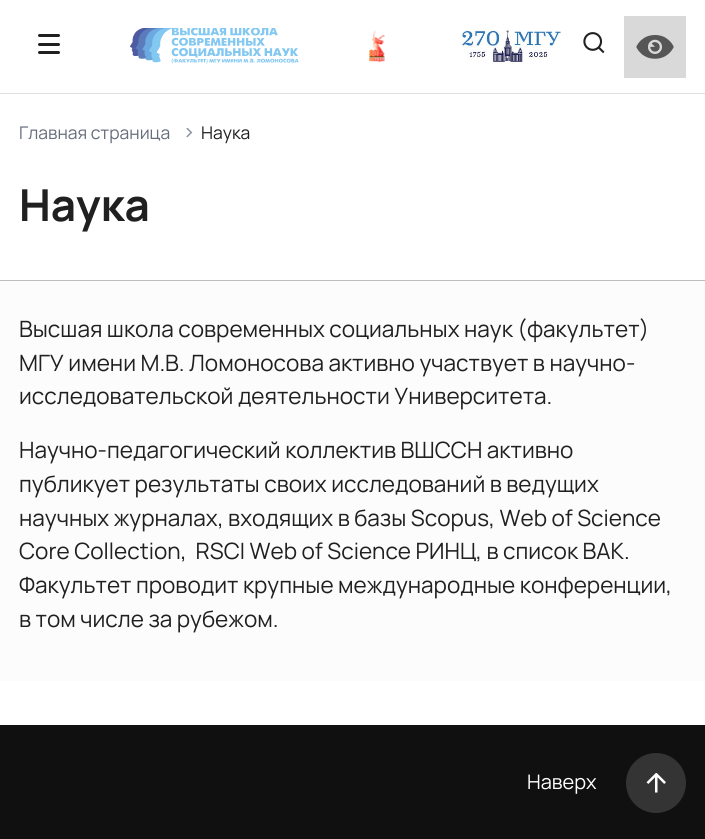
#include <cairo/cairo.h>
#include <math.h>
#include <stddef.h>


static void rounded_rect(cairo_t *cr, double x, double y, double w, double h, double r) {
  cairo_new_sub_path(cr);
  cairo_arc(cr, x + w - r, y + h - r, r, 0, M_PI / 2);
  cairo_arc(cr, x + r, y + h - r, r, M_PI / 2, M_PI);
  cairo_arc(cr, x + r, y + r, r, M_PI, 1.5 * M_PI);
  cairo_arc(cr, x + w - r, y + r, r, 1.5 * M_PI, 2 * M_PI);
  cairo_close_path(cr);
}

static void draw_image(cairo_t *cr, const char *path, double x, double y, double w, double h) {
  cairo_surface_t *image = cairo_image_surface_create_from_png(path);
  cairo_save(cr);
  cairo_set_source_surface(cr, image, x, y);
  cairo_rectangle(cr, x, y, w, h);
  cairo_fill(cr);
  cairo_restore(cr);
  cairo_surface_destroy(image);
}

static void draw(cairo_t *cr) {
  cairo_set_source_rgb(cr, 1, 1, 1);
  cairo_paint(cr);
  cairo_set_source_rgb(cr, 223 / 255.0, 223 / 255.0, 223 / 255.0);
  cairo_rectangle(cr, 0, 93, 705, 1);
  cairo_fill(cr);
  cairo_set_source_rgb(cr, 32 / 255.0, 32 / 255.0, 32 / 255.0);
  rounded_rect(cr, 38, 34, 22, 3, 1.5);
  cairo_fill(cr);
  rounded_rect(cr, 38, 43, 22, 3, 1.5);
  cairo_fill(cr);
  rounded_rect(cr, 38, 51, 22, 3, 1.5);
  cairo_fill(cr);
  draw_image(cr, "images/1.png", 130, 28, 169, 36);
  draw_image(cr, "images/2.png", 369, 30, 16, 33);
  draw_image(cr, "images/3.png", 462, 27, 99, 37);
  draw_image(cr, "images/4.png", 583, 32, 22, 22);
  cairo_set_source_rgb(cr, 217 / 255.0, 217 / 255.0, 217 / 255.0);
  cairo_rectangle(cr, 624, 16, 62, 62);
  cairo_fill(cr);
  draw_image(cr, "images/5.png", 636, 35, 38, 24);
  draw_image(cr, "images/6.png", 186, 128, 7, 10);
  cairo_set_source_rgb(cr, 252 / 255.0, 252 / 255.0, 252 / 255.0);
  cairo_rectangle(cr, 0, 281, 705, 400);
  cairo_fill(cr);
  cairo_set_source_rgb(cr, 189 / 255.0, 189 / 255.0, 189 / 255.0);
  cairo_rectangle(cr, 0, 280, 705, 1);
  cairo_fill(cr);
  cairo_set_source_rgb(cr, 16 / 255.0, 16 / 255.0, 16 / 255.0);
  cairo_rectangle(cr, 0, 725, 705, 114);
  cairo_fill(cr);
  cairo_set_source_rgb(cr, 52 / 255.0, 52 / 255.0, 52 / 255.0);
  cairo_arc(cr, 656, 783, 30, 0, 2 * M_PI);
  cairo_fill(cr);
  draw_image(cr, "images/7.png", 646, 773, 20, 20);
  cairo_select_font_face(cr, "Manrope", CAIRO_FONT_SLANT_NORMAL, CAIRO_FONT_WEIGHT_NORMAL);
  cairo_set_font_size(cr, 17.5);
  cairo_set_source_rgb(cr, 103 / 255.0, 110 / 255.0, 123 / 255.0);
  cairo_move_to(cr, 19, 139);
  cairo_show_text(cr, "Главная страница");
  cairo_set_source_rgb(cr, 32 / 255.0, 32 / 255.0, 32 / 255.0);
  cairo_move_to(cr, 201, 139);
  cairo_show_text(cr, "Наука");
  cairo_select_font_face(cr, "Manrope", CAIRO_FONT_SLANT_NORMAL, CAIRO_FONT_WEIGHT_BOLD);
  cairo_set_font_size(cr, 44);
  cairo_move_to(cr, 19, 221);
  cairo_show_text(cr, "Наука");
  cairo_select_font_face(cr, "Manrope", CAIRO_FONT_SLANT_NORMAL, CAIRO_FONT_WEIGHT_NORMAL);
  cairo_set_font_size(cr, 22.5);
  cairo_move_to(cr, 19, 337);
  cairo_show_text(cr, "Высшая школа современных социальных наук (факультет)");
  cairo_move_to(cr, 19, 371);
  cairo_show_text(cr, "МГУ имени М.В. Ломоносова активно участвует в научно-");
  cairo_move_to(cr, 19, 404);
  cairo_show_text(cr, "исследовательской деятельности Университета.");
  cairo_move_to(cr, 19, 458);
  cairo_show_text(cr, "Научно-педагогический коллектив ВШССН активно");
  cairo_move_to(cr, 19, 492);
  cairo_show_text(cr, "публикует результаты своих исследований в ведущих");
  cairo_move_to(cr, 19, 526);
  cairo_show_text(cr, "научных журналах, входящих в базы Scopus, Web of Science");
  cairo_move_to(cr, 19, 559);
  cairo_show_text(cr, "Core Collection,  RSCI Web of Science РИНЦ, в список ВАК.");
  cairo_move_to(cr, 19, 593);
  cairo_show_text(cr, "Факультет проводит крупные международные конференции,");
  cairo_move_to(cr, 19, 627);
  cairo_show_text(cr, "в том числе за рубежом.");
  cairo_set_font_size(cr, 20);
  cairo_set_source_rgb(cr, 1, 1, 1);
  cairo_move_to(cr, 527, 789);
  cairo_show_text(cr, "Наверх");
}

int main(void) {
  cairo_surface_t *surface = cairo_image_surface_create(CAIRO_FORMAT_RGB24, 705, 839);
  cairo_t *cr = cairo_create(surface);
  cairo_font_options_t *options = cairo_font_options_create();
  cairo_font_options_set_hint_metrics(options, CAIRO_HINT_METRICS_OFF);
  cairo_font_options_set_hint_style(options, CAIRO_HINT_STYLE_NONE);
  cairo_set_font_options(cr, options);
  cairo_set_miter_limit(cr, 4);
  draw(cr);
  cairo_surface_write_to_png(surface, "out.png");
  cairo_font_options_destroy(options);
  cairo_destroy(cr);
  cairo_surface_destroy(surface);
  return 0;
}
